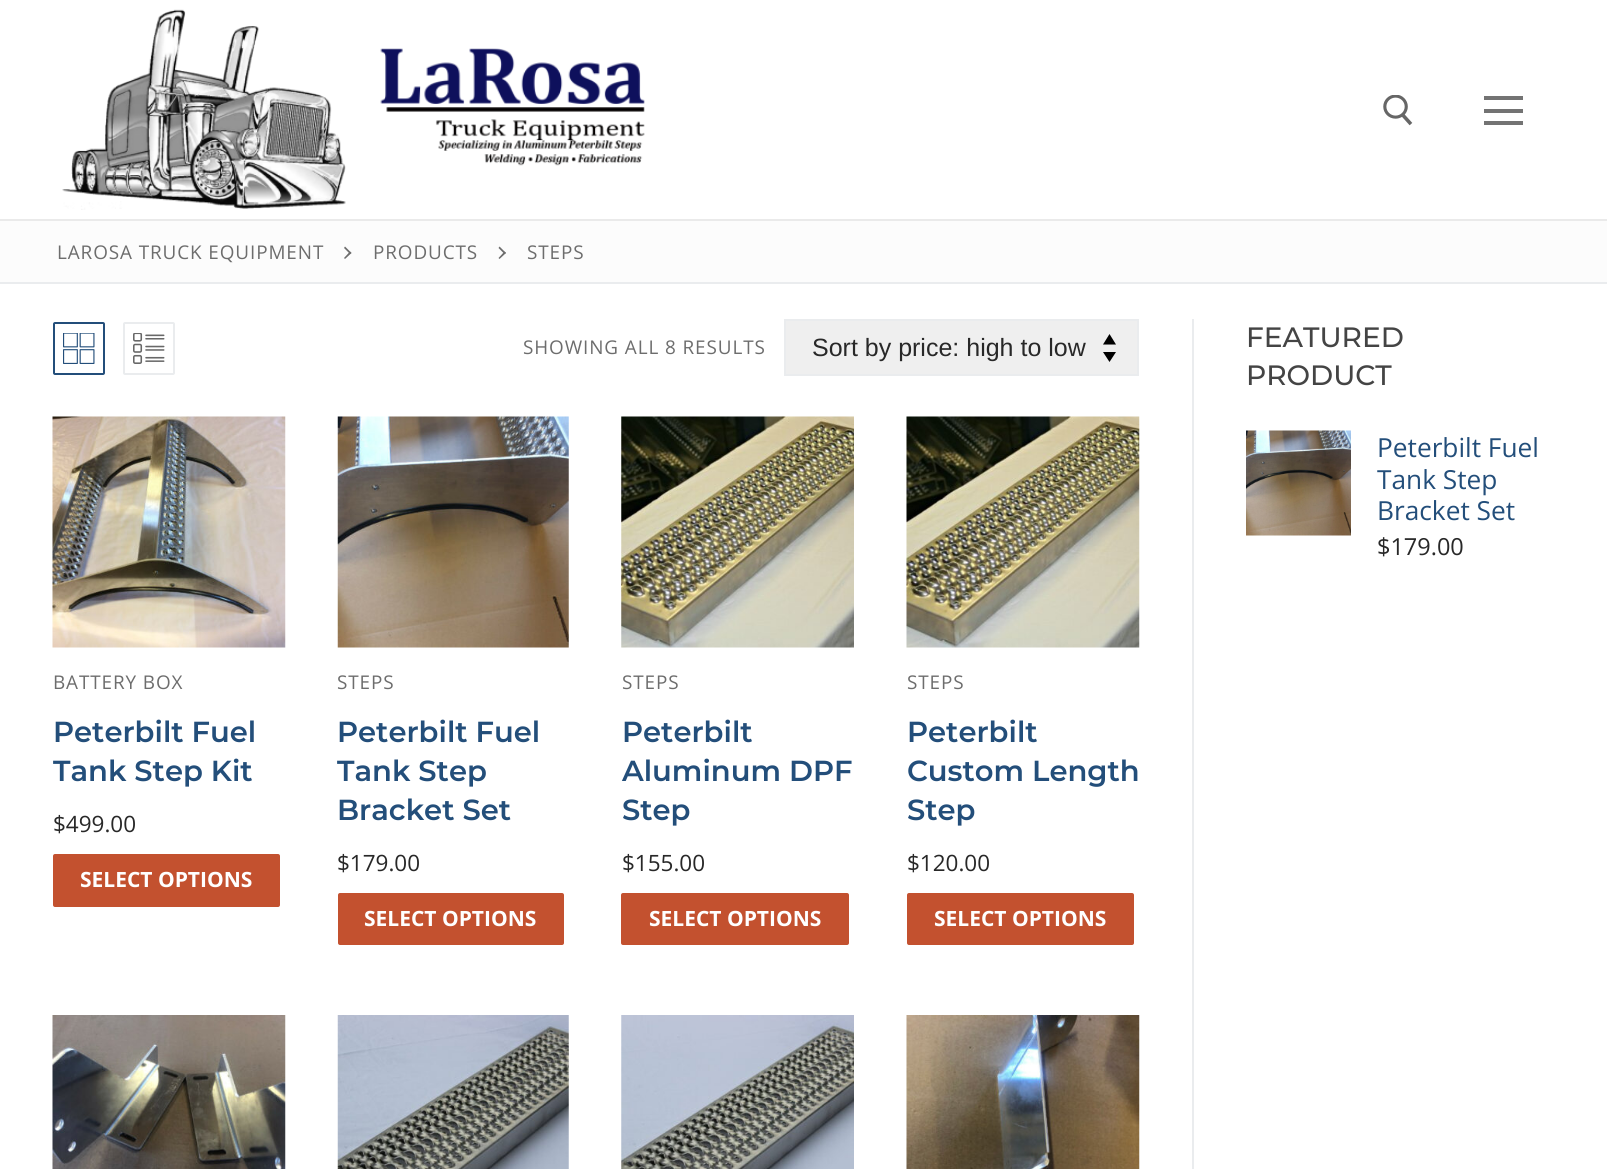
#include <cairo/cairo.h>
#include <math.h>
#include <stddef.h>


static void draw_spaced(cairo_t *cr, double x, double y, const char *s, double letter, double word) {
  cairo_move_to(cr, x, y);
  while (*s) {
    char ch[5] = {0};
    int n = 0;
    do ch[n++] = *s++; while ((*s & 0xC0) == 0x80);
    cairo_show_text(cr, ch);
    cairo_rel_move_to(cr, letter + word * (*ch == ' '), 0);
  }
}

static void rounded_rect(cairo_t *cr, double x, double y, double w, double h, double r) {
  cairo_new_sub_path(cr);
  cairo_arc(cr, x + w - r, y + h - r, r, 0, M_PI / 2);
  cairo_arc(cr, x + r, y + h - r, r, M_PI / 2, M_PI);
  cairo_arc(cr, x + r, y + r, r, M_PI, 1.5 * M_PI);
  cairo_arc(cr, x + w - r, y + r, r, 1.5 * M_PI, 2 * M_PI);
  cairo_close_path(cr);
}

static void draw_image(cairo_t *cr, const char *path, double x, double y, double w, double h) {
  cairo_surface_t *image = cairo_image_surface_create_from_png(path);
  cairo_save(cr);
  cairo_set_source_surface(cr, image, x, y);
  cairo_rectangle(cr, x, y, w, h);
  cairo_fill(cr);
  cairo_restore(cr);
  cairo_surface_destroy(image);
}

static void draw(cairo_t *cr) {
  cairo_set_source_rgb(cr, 1, 1, 1);
  cairo_paint(cr);
  cairo_set_source_rgb(cr, 234 / 255.0, 234 / 255.0, 234 / 255.0);
  cairo_rectangle(cr, 0, 219, 1607, 2);
  cairo_fill(cr);
  draw_image(cr, "images/1.png", 62, 9, 583, 201);
  draw_image(cr, "images/2.png", 1383, 95, 30, 31);
  cairo_set_source_rgb(cr, 115 / 255.0, 115 / 255.0, 115 / 255.0);
  cairo_rectangle(cr, 1484, 109, 39, 4);
  cairo_fill(cr);
  cairo_rectangle(cr, 1484, 96, 39, 4);
  cairo_fill(cr);
  cairo_rectangle(cr, 1484, 121, 39, 4);
  cairo_fill(cr);
  cairo_set_source_rgb(cr, 252 / 255.0, 252 / 255.0, 252 / 255.0);
  cairo_rectangle(cr, 0, 221, 1607, 61);
  cairo_fill(cr);
  cairo_set_source_rgb(cr, 234 / 255.0, 236 / 255.0, 238 / 255.0);
  cairo_rectangle(cr, 0, 282, 1607, 2);
  cairo_fill(cr);
  cairo_set_source_rgb(cr, 109 / 255.0, 109 / 255.0, 109 / 255.0);
  cairo_new_path(cr);
  cairo_move_to(cr, 351.5, 253);
  cairo_line_to(cr, 345, 259);
  cairo_line_to(cr, 344, 258);
  cairo_line_to(cr, 350, 251.5);
  cairo_close_path(cr);
  cairo_fill(cr);
  cairo_new_path(cr);
  cairo_move_to(cr, 351.5, 253);
  cairo_line_to(cr, 350, 254);
  cairo_line_to(cr, 344, 248);
  cairo_line_to(cr, 345, 246.5);
  cairo_close_path(cr);
  cairo_fill(cr);
  cairo_new_path(cr);
  cairo_move_to(cr, 506, 253);
  cairo_line_to(cr, 499.5, 259);
  cairo_line_to(cr, 498.5, 258);
  cairo_line_to(cr, 504.5, 251.5);
  cairo_close_path(cr);
  cairo_fill(cr);
  cairo_new_path(cr);
  cairo_move_to(cr, 506, 253);
  cairo_line_to(cr, 504.5, 254);
  cairo_line_to(cr, 498.5, 248);
  cairo_line_to(cr, 499.5, 246.5);
  cairo_close_path(cr);
  cairo_fill(cr);
  cairo_set_source_rgb(cr, 234 / 255.0, 236 / 255.0, 238 / 255.0);
  cairo_rectangle(cr, 1192, 319, 2, 850);
  cairo_fill(cr);
  rounded_rect(cr, 54, 323, 50, 51, 1);
  cairo_set_source_rgb(cr, 35 / 255.0, 78 / 255.0, 122 / 255.0);
  cairo_stroke(cr);
  draw_image(cr, "images/3.png", 63, 333, 32, 31);
  rounded_rect(cr, 124, 323, 50, 51, 1);
  cairo_set_source_rgb(cr, 234 / 255.0, 236 / 255.0, 238 / 255.0);
  cairo_stroke(cr);
  draw_image(cr, "images/4.png", 133, 333, 32, 31);
  cairo_set_source_rgb(cr, 239 / 255.0, 239 / 255.0, 239 / 255.0);
  cairo_rectangle(cr, 786, 321, 351, 53);
  cairo_fill(cr);
  cairo_set_source_rgb(cr, 0, 0, 0);
  cairo_new_path(cr);
  cairo_move_to(cr, 1109.5, 334);
  cairo_line_to(cr, 1103, 344.5);
  cairo_line_to(cr, 1116, 344.5);
  cairo_close_path(cr);
  cairo_move_to(cr, 1109.5, 362);
  cairo_line_to(cr, 1116, 352);
  cairo_line_to(cr, 1103, 352);
  cairo_close_path(cr);
  cairo_fill(cr);
  cairo_rectangle(cr, 785, 320, 353, 55);
  cairo_set_source_rgb(cr, 234 / 255.0, 236 / 255.0, 238 / 255.0);
  cairo_stroke(cr);
  draw_image(cr, "images/5.png", 52, 416, 234, 232);
  cairo_set_source_rgb(cr, 195 / 255.0, 81 / 255.0, 47 / 255.0);
  rounded_rect(cr, 53, 854, 227, 53, 2);
  cairo_fill(cr);
  draw_image(cr, "images/6.png", 337, 416, 232, 232);
  rounded_rect(cr, 338, 893, 226, 52, 2);
  cairo_fill(cr);
  draw_image(cr, "images/7.png", 621, 416, 233, 232);
  rounded_rect(cr, 621, 893, 228, 52, 2);
  cairo_fill(cr);
  draw_image(cr, "images/8.png", 906, 416, 234, 232);
  rounded_rect(cr, 907, 893, 227, 52, 2);
  cairo_fill(cr);
  draw_image(cr, "images/9.png", 52, 1015, 234, 154);
  draw_image(cr, "images/10.png", 337, 1015, 232, 154);
  draw_image(cr, "images/11.png", 621, 1015, 233, 154);
  draw_image(cr, "images/12.png", 906, 1015, 234, 154);
  draw_image(cr, "images/13.png", 1246, 430, 105, 106);
  cairo_select_font_face(cr, "Open Sans", CAIRO_FONT_SLANT_NORMAL, CAIRO_FONT_WEIGHT_NORMAL);
  cairo_set_font_size(cr, 18.9);
  cairo_set_source_rgb(cr, 109 / 255.0, 109 / 255.0, 109 / 255.0);
  draw_spaced(cr, 57, 259, "LAROSA TRUCK EQUIPMENT", 0.9, 0);
  draw_spaced(cr, 373, 259, "PRODUCTS", 0.9, 0);
  draw_spaced(cr, 527, 259, "STEPS", 0.9, 0);
  draw_spaced(cr, 523, 354, "SHOWING ALL 8 RESULTS", 0.9, 0);
  cairo_select_font_face(cr, "Liberation Sans", CAIRO_FONT_SLANT_NORMAL, CAIRO_FONT_WEIGHT_NORMAL);
  cairo_set_font_size(cr, 25);
  cairo_set_source_rgb(cr, 40 / 255.0, 40 / 255.0, 40 / 255.0);
  cairo_move_to(cr, 812, 356);
  cairo_show_text(cr, "Sort by price: high to low");
  cairo_select_font_face(cr, "Open Sans", CAIRO_FONT_SLANT_NORMAL, CAIRO_FONT_WEIGHT_NORMAL);
  cairo_set_font_size(cr, 18.9);
  cairo_set_source_rgb(cr, 109 / 255.0, 109 / 255.0, 109 / 255.0);
  draw_spaced(cr, 53, 689, "BATTERY BOX", 0.9, 0);
  cairo_select_font_face(cr, "Montserrat SemiBold", CAIRO_FONT_SLANT_NORMAL, CAIRO_FONT_WEIGHT_NORMAL);
  cairo_set_font_size(cr, 29);
  cairo_set_source_rgb(cr, 35 / 255.0, 78 / 255.0, 122 / 255.0);
  cairo_move_to(cr, 53, 742);
  cairo_show_text(cr, "Peterbilt Fuel");
  cairo_move_to(cr, 53, 781);
  cairo_show_text(cr, "Tank Step Kit");
  cairo_select_font_face(cr, "Open Sans", CAIRO_FONT_SLANT_NORMAL, CAIRO_FONT_WEIGHT_NORMAL);
  cairo_set_font_size(cr, 22.5);
  cairo_set_source_rgb(cr, 40 / 255.0, 40 / 255.0, 40 / 255.0);
  cairo_move_to(cr, 53, 832);
  cairo_show_text(cr, "$499.00");
  cairo_select_font_face(cr, "Open Sans", CAIRO_FONT_SLANT_NORMAL, CAIRO_FONT_WEIGHT_BOLD);
  cairo_set_font_size(cr, 21);
  cairo_set_source_rgb(cr, 1, 1, 1);
  cairo_move_to(cr, 80, 887);
  cairo_show_text(cr, "SELECT OPTIONS");
  cairo_select_font_face(cr, "Open Sans", CAIRO_FONT_SLANT_NORMAL, CAIRO_FONT_WEIGHT_NORMAL);
  cairo_set_font_size(cr, 18.9);
  cairo_set_source_rgb(cr, 109 / 255.0, 109 / 255.0, 109 / 255.0);
  draw_spaced(cr, 337, 689, "STEPS", 0.9, 0);
  cairo_select_font_face(cr, "Montserrat SemiBold", CAIRO_FONT_SLANT_NORMAL, CAIRO_FONT_WEIGHT_NORMAL);
  cairo_set_font_size(cr, 29);
  cairo_set_source_rgb(cr, 35 / 255.0, 78 / 255.0, 122 / 255.0);
  cairo_move_to(cr, 337, 742);
  cairo_show_text(cr, "Peterbilt Fuel");
  cairo_move_to(cr, 337, 781);
  cairo_show_text(cr, "Tank Step");
  cairo_move_to(cr, 337, 820);
  cairo_show_text(cr, "Bracket Set");
  cairo_select_font_face(cr, "Open Sans", CAIRO_FONT_SLANT_NORMAL, CAIRO_FONT_WEIGHT_NORMAL);
  cairo_set_font_size(cr, 22.5);
  cairo_set_source_rgb(cr, 40 / 255.0, 40 / 255.0, 40 / 255.0);
  cairo_move_to(cr, 337, 871);
  cairo_show_text(cr, "$179.00");
  cairo_select_font_face(cr, "Open Sans", CAIRO_FONT_SLANT_NORMAL, CAIRO_FONT_WEIGHT_BOLD);
  cairo_set_font_size(cr, 21);
  cairo_set_source_rgb(cr, 1, 1, 1);
  cairo_move_to(cr, 364, 926);
  cairo_show_text(cr, "SELECT OPTIONS");
  cairo_select_font_face(cr, "Open Sans", CAIRO_FONT_SLANT_NORMAL, CAIRO_FONT_WEIGHT_NORMAL);
  cairo_set_font_size(cr, 18.9);
  cairo_set_source_rgb(cr, 109 / 255.0, 109 / 255.0, 109 / 255.0);
  draw_spaced(cr, 622, 689, "STEPS", 0.9, 0);
  cairo_select_font_face(cr, "Montserrat SemiBold", CAIRO_FONT_SLANT_NORMAL, CAIRO_FONT_WEIGHT_NORMAL);
  cairo_set_font_size(cr, 29);
  cairo_set_source_rgb(cr, 35 / 255.0, 78 / 255.0, 122 / 255.0);
  cairo_move_to(cr, 622, 742);
  cairo_show_text(cr, "Peterbilt");
  cairo_move_to(cr, 622, 781);
  cairo_show_text(cr, "Aluminum DPF");
  cairo_move_to(cr, 622, 820);
  cairo_show_text(cr, "Step");
  cairo_select_font_face(cr, "Open Sans", CAIRO_FONT_SLANT_NORMAL, CAIRO_FONT_WEIGHT_NORMAL);
  cairo_set_font_size(cr, 22.5);
  cairo_set_source_rgb(cr, 40 / 255.0, 40 / 255.0, 40 / 255.0);
  cairo_move_to(cr, 622, 871);
  cairo_show_text(cr, "$155.00");
  cairo_select_font_face(cr, "Open Sans", CAIRO_FONT_SLANT_NORMAL, CAIRO_FONT_WEIGHT_BOLD);
  cairo_set_font_size(cr, 21);
  cairo_set_source_rgb(cr, 1, 1, 1);
  cairo_move_to(cr, 649, 926);
  cairo_show_text(cr, "SELECT OPTIONS");
  cairo_select_font_face(cr, "Open Sans", CAIRO_FONT_SLANT_NORMAL, CAIRO_FONT_WEIGHT_NORMAL);
  cairo_set_font_size(cr, 18.9);
  cairo_set_source_rgb(cr, 109 / 255.0, 109 / 255.0, 109 / 255.0);
  draw_spaced(cr, 907, 689, "STEPS", 0.9, 0);
  cairo_select_font_face(cr, "Montserrat SemiBold", CAIRO_FONT_SLANT_NORMAL, CAIRO_FONT_WEIGHT_NORMAL);
  cairo_set_font_size(cr, 29);
  cairo_set_source_rgb(cr, 35 / 255.0, 78 / 255.0, 122 / 255.0);
  cairo_move_to(cr, 907, 742);
  cairo_show_text(cr, "Peterbilt");
  cairo_move_to(cr, 907, 781);
  cairo_show_text(cr, "Custom Length");
  cairo_move_to(cr, 907, 820);
  cairo_show_text(cr, "Step");
  cairo_select_font_face(cr, "Open Sans", CAIRO_FONT_SLANT_NORMAL, CAIRO_FONT_WEIGHT_NORMAL);
  cairo_set_font_size(cr, 22.5);
  cairo_set_source_rgb(cr, 40 / 255.0, 40 / 255.0, 40 / 255.0);
  cairo_move_to(cr, 907, 871);
  cairo_show_text(cr, "$120.00");
  cairo_select_font_face(cr, "Open Sans", CAIRO_FONT_SLANT_NORMAL, CAIRO_FONT_WEIGHT_BOLD);
  cairo_set_font_size(cr, 21);
  cairo_set_source_rgb(cr, 1, 1, 1);
  cairo_move_to(cr, 934, 926);
  cairo_show_text(cr, "SELECT OPTIONS");
  cairo_select_font_face(cr, "Montserrat Medium", CAIRO_FONT_SLANT_NORMAL, CAIRO_FONT_WEIGHT_NORMAL);
  cairo_set_font_size(cr, 28);
  cairo_set_source_rgb(cr, 68 / 255.0, 68 / 255.0, 68 / 255.0);
  cairo_move_to(cr, 1246, 347);
  cairo_show_text(cr, "FEATURED");
  cairo_move_to(cr, 1246, 385);
  cairo_show_text(cr, "PRODUCT");
  cairo_select_font_face(cr, "Open Sans", CAIRO_FONT_SLANT_NORMAL, CAIRO_FONT_WEIGHT_NORMAL);
  cairo_set_font_size(cr, 26.25);
  cairo_set_source_rgb(cr, 35 / 255.0, 78 / 255.0, 122 / 255.0);
  cairo_move_to(cr, 1377, 457);
  cairo_show_text(cr, "Peterbilt Fuel");
  cairo_move_to(cr, 1377, 489);
  cairo_show_text(cr, "Tank Step");
  cairo_move_to(cr, 1377, 520);
  cairo_show_text(cr, "Bracket Set");
  cairo_set_font_size(cr, 23.5);
  cairo_set_source_rgb(cr, 40 / 255.0, 40 / 255.0, 40 / 255.0);
  cairo_move_to(cr, 1377, 555);
  cairo_show_text(cr, "$179.00");
}

int main(void) {
  cairo_surface_t *surface = cairo_image_surface_create(CAIRO_FORMAT_RGB24, 1607, 1169);
  cairo_t *cr = cairo_create(surface);
  cairo_font_options_t *options = cairo_font_options_create();
  cairo_font_options_set_hint_metrics(options, CAIRO_HINT_METRICS_OFF);
  cairo_font_options_set_hint_style(options, CAIRO_HINT_STYLE_NONE);
  cairo_set_font_options(cr, options);
  cairo_set_miter_limit(cr, 4);
  draw(cr);
  cairo_surface_write_to_png(surface, "out.png");
  cairo_font_options_destroy(options);
  cairo_destroy(cr);
  cairo_surface_destroy(surface);
  return 0;
}
